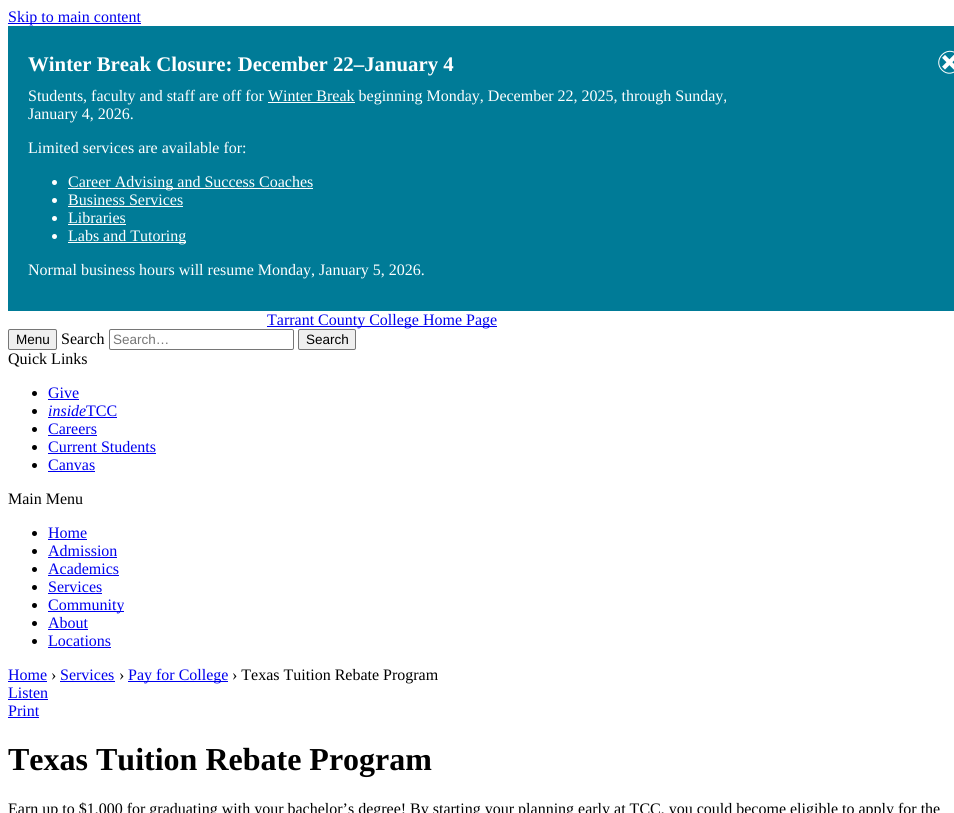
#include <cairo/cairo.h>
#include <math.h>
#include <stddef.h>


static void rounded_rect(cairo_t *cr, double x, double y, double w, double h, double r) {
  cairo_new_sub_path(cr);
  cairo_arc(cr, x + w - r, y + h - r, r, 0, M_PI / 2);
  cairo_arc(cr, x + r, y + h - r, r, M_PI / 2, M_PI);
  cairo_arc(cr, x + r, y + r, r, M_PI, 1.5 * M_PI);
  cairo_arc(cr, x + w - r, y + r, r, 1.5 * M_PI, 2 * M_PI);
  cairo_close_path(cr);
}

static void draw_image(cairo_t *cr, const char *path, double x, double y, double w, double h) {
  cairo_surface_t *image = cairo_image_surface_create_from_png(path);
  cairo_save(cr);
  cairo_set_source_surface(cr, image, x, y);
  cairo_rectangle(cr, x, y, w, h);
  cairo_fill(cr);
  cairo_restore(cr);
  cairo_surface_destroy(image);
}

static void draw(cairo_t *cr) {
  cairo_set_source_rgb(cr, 1, 1, 1);
  cairo_paint(cr);
  cairo_set_source_rgb(cr, 0, 0, 238 / 255.0);
  cairo_rectangle(cr, 8, 23, 133, 1);
  cairo_fill(cr);
  cairo_set_source_rgb(cr, 0, 123 / 255.0, 151 / 255.0);
  cairo_rectangle(cr, 8, 26, 946, 285);
  cairo_fill(cr);
  cairo_new_path(cr);
  cairo_move_to(cr, 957.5, 54.5);
  cairo_curve_to(cr, 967.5, 64.5, 952, 80, 942, 70);
  cairo_curve_to(cr, 932, 60, 947, 44.5, 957.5, 54.5);
  cairo_close_path(cr);
  cairo_set_source_rgb(cr, 1, 1, 1);
  cairo_set_line_width(cr, 1);
  cairo_stroke(cr);
  draw_image(cr, "images/1.png", 942, 55, 12, 15);
  cairo_rectangle(cr, 268, 102, 87, 1);
  cairo_fill(cr);
  cairo_arc(cr, 54.5, 182.5, 2.5, 0, 2 * M_PI);
  cairo_fill(cr);
  cairo_rectangle(cr, 68, 188, 245, 1);
  cairo_fill(cr);
  cairo_arc(cr, 54.5, 200.5, 2.5, 0, 2 * M_PI);
  cairo_fill(cr);
  cairo_rectangle(cr, 68, 206, 115, 1);
  cairo_fill(cr);
  cairo_arc(cr, 54.5, 218.5, 2.5, 0, 2 * M_PI);
  cairo_fill(cr);
  cairo_rectangle(cr, 68, 224, 58, 1);
  cairo_fill(cr);
  cairo_arc(cr, 54.5, 236.5, 2.5, 0, 2 * M_PI);
  cairo_fill(cr);
  cairo_rectangle(cr, 68, 242, 118, 1);
  cairo_fill(cr);
  cairo_set_source_rgb(cr, 0, 0, 238 / 255.0);
  cairo_rectangle(cr, 267, 326, 230, 1);
  cairo_fill(cr);
  cairo_set_source_rgb(cr, 239 / 255.0, 239 / 255.0, 239 / 255.0);
  rounded_rect(cr, 8.5, 329.5, 48, 20, 1.5);
  cairo_fill_preserve(cr);
  cairo_set_source_rgb(cr, 118 / 255.0, 118 / 255.0, 118 / 255.0);
  cairo_stroke(cr);
  rounded_rect(cr, 109.5, 329.5, 184, 20, 1.5);
  cairo_stroke(cr);
  cairo_set_source_rgb(cr, 239 / 255.0, 239 / 255.0, 239 / 255.0);
  rounded_rect(cr, 298.5, 329.5, 57, 20, 1.5);
  cairo_fill_preserve(cr);
  cairo_set_source_rgb(cr, 118 / 255.0, 118 / 255.0, 118 / 255.0);
  cairo_stroke(cr);
  cairo_set_source_rgb(cr, 0, 0, 0);
  cairo_arc(cr, 34.5, 393.5, 2.5, 0, 2 * M_PI);
  cairo_fill(cr);
  cairo_set_source_rgb(cr, 0, 0, 238 / 255.0);
  cairo_rectangle(cr, 48, 399, 31, 1);
  cairo_fill(cr);
  cairo_set_source_rgb(cr, 0, 0, 0);
  cairo_arc(cr, 34.5, 411.5, 2.5, 0, 2 * M_PI);
  cairo_fill(cr);
  cairo_set_source_rgb(cr, 0, 0, 238 / 255.0);
  cairo_rectangle(cr, 48, 417, 69, 1);
  cairo_fill(cr);
  cairo_set_source_rgb(cr, 0, 0, 0);
  cairo_arc(cr, 34.5, 429.5, 2.5, 0, 2 * M_PI);
  cairo_fill(cr);
  cairo_set_source_rgb(cr, 0, 0, 238 / 255.0);
  cairo_rectangle(cr, 48, 435, 49, 1);
  cairo_fill(cr);
  cairo_set_source_rgb(cr, 0, 0, 0);
  cairo_arc(cr, 34.5, 447.5, 2.5, 0, 2 * M_PI);
  cairo_fill(cr);
  cairo_set_source_rgb(cr, 0, 0, 238 / 255.0);
  cairo_rectangle(cr, 48, 453, 108, 1);
  cairo_fill(cr);
  cairo_set_source_rgb(cr, 0, 0, 0);
  cairo_arc(cr, 34.5, 465.5, 2.5, 0, 2 * M_PI);
  cairo_fill(cr);
  cairo_set_source_rgb(cr, 0, 0, 238 / 255.0);
  cairo_rectangle(cr, 48, 471, 47, 1);
  cairo_fill(cr);
  cairo_set_source_rgb(cr, 0, 0, 0);
  cairo_arc(cr, 34.5, 533.5, 2.5, 0, 2 * M_PI);
  cairo_fill(cr);
  cairo_set_source_rgb(cr, 0, 0, 238 / 255.0);
  cairo_rectangle(cr, 48, 539, 39, 1);
  cairo_fill(cr);
  cairo_set_source_rgb(cr, 0, 0, 0);
  cairo_arc(cr, 34.5, 551.5, 2.5, 0, 2 * M_PI);
  cairo_fill(cr);
  cairo_set_source_rgb(cr, 0, 0, 238 / 255.0);
  cairo_rectangle(cr, 48, 557, 69, 1);
  cairo_fill(cr);
  cairo_set_source_rgb(cr, 0, 0, 0);
  cairo_arc(cr, 34.5, 569.5, 2.5, 0, 2 * M_PI);
  cairo_fill(cr);
  cairo_set_source_rgb(cr, 0, 0, 238 / 255.0);
  cairo_rectangle(cr, 48, 575, 71, 1);
  cairo_fill(cr);
  cairo_set_source_rgb(cr, 0, 0, 0);
  cairo_arc(cr, 34.5, 587.5, 2.5, 0, 2 * M_PI);
  cairo_fill(cr);
  cairo_set_source_rgb(cr, 0, 0, 238 / 255.0);
  cairo_rectangle(cr, 48, 593, 54, 1);
  cairo_fill(cr);
  cairo_set_source_rgb(cr, 0, 0, 0);
  cairo_arc(cr, 34.5, 605.5, 2.5, 0, 2 * M_PI);
  cairo_fill(cr);
  cairo_set_source_rgb(cr, 0, 0, 238 / 255.0);
  cairo_rectangle(cr, 48, 611, 76, 1);
  cairo_fill(cr);
  cairo_set_source_rgb(cr, 0, 0, 0);
  cairo_arc(cr, 34.5, 623.5, 2.5, 0, 2 * M_PI);
  cairo_fill(cr);
  cairo_set_source_rgb(cr, 0, 0, 238 / 255.0);
  cairo_rectangle(cr, 48, 629, 40, 1);
  cairo_fill(cr);
  cairo_set_source_rgb(cr, 0, 0, 0);
  cairo_arc(cr, 34.5, 641.5, 2.5, 0, 2 * M_PI);
  cairo_fill(cr);
  cairo_set_source_rgb(cr, 0, 0, 238 / 255.0);
  cairo_rectangle(cr, 48, 647, 63, 1);
  cairo_fill(cr);
  cairo_rectangle(cr, 8, 681, 39, 1);
  cairo_fill(cr);
  cairo_rectangle(cr, 60, 681, 55, 1);
  cairo_fill(cr);
  cairo_rectangle(cr, 128, 681, 100, 1);
  cairo_fill(cr);
  cairo_rectangle(cr, 8, 699, 40, 1);
  cairo_fill(cr);
  cairo_rectangle(cr, 8, 717, 31, 1);
  cairo_fill(cr);
  cairo_select_font_face(cr, "Liberation Serif", CAIRO_FONT_SLANT_NORMAL, CAIRO_FONT_WEIGHT_NORMAL);
  cairo_set_font_size(cr, 16);
  cairo_move_to(cr, 8, 22);
  cairo_show_text(cr, "Skip to main content");
  cairo_select_font_face(cr, "Liberation Serif", CAIRO_FONT_SLANT_NORMAL, CAIRO_FONT_WEIGHT_BOLD);
  cairo_set_font_size(cr, 20.8);
  cairo_set_source_rgb(cr, 1, 1, 1);
  cairo_move_to(cr, 28, 71);
  cairo_show_text(cr, "Winter Break Closure: December 22–January 4");
  cairo_select_font_face(cr, "Liberation Serif", CAIRO_FONT_SLANT_NORMAL, CAIRO_FONT_WEIGHT_NORMAL);
  cairo_set_font_size(cr, 16);
  cairo_move_to(cr, 28, 101);
  cairo_show_text(cr, "Students, faculty and staff are off for Winter Break beginning Monday, December 22, 2025, through Sunday,");
  cairo_move_to(cr, 28, 119);
  cairo_show_text(cr, "January 4, 2026.");
  cairo_move_to(cr, 28, 153);
  cairo_show_text(cr, "Limited services are available for:");
  cairo_move_to(cr, 68, 187);
  cairo_show_text(cr, "Career Advising and Success Coaches");
  cairo_move_to(cr, 68, 205);
  cairo_show_text(cr, "Business Services");
  cairo_move_to(cr, 68, 223);
  cairo_show_text(cr, "Libraries");
  cairo_move_to(cr, 68, 241);
  cairo_show_text(cr, "Labs and Tutoring");
  cairo_move_to(cr, 28, 275);
  cairo_show_text(cr, "Normal business hours will resume Monday, January 5, 2026.");
  cairo_set_source_rgb(cr, 0, 0, 238 / 255.0);
  cairo_move_to(cr, 267, 325);
  cairo_show_text(cr, "Tarrant County College Home Page");
  cairo_select_font_face(cr, "Liberation Sans", CAIRO_FONT_SLANT_NORMAL, CAIRO_FONT_WEIGHT_NORMAL);
  cairo_set_font_size(cr, 13.5);
  cairo_set_source_rgb(cr, 0, 0, 0);
  cairo_move_to(cr, 16, 344);
  cairo_show_text(cr, "Menu");
  cairo_select_font_face(cr, "Liberation Serif", CAIRO_FONT_SLANT_NORMAL, CAIRO_FONT_WEIGHT_NORMAL);
  cairo_set_font_size(cr, 16);
  cairo_move_to(cr, 61, 344);
  cairo_show_text(cr, "Search");
  cairo_select_font_face(cr, "Liberation Sans", CAIRO_FONT_SLANT_NORMAL, CAIRO_FONT_WEIGHT_NORMAL);
  cairo_set_font_size(cr, 13.5);
  cairo_set_source_rgb(cr, 117 / 255.0, 117 / 255.0, 117 / 255.0);
  cairo_move_to(cr, 113, 344);
  cairo_show_text(cr, "Search…");
  cairo_set_source_rgb(cr, 0, 0, 0);
  cairo_move_to(cr, 306, 344);
  cairo_show_text(cr, "Search");
  cairo_select_font_face(cr, "Liberation Serif", CAIRO_FONT_SLANT_NORMAL, CAIRO_FONT_WEIGHT_NORMAL);
  cairo_set_font_size(cr, 16);
  cairo_move_to(cr, 8, 364);
  cairo_show_text(cr, "Quick Links");
  cairo_set_source_rgb(cr, 0, 0, 238 / 255.0);
  cairo_move_to(cr, 48, 398);
  cairo_show_text(cr, "Give");
  cairo_select_font_face(cr, "Liberation Serif", CAIRO_FONT_SLANT_ITALIC, CAIRO_FONT_WEIGHT_NORMAL);
  cairo_move_to(cr, 48, 416);
  cairo_show_text(cr, "inside");
  cairo_select_font_face(cr, "Liberation Serif", CAIRO_FONT_SLANT_NORMAL, CAIRO_FONT_WEIGHT_NORMAL);
  cairo_move_to(cr, 86, 416);
  cairo_show_text(cr, "TCC");
  cairo_move_to(cr, 48, 434);
  cairo_show_text(cr, "Careers");
  cairo_move_to(cr, 48, 452);
  cairo_show_text(cr, "Current Students");
  cairo_move_to(cr, 48, 470);
  cairo_show_text(cr, "Canvas");
  cairo_set_source_rgb(cr, 0, 0, 0);
  cairo_move_to(cr, 8, 504);
  cairo_show_text(cr, "Main Menu");
  cairo_set_source_rgb(cr, 0, 0, 238 / 255.0);
  cairo_move_to(cr, 48, 538);
  cairo_show_text(cr, "Home");
  cairo_move_to(cr, 48, 556);
  cairo_show_text(cr, "Admission");
  cairo_move_to(cr, 48, 574);
  cairo_show_text(cr, "Academics");
  cairo_move_to(cr, 48, 592);
  cairo_show_text(cr, "Services");
  cairo_move_to(cr, 48, 610);
  cairo_show_text(cr, "Community");
  cairo_move_to(cr, 48, 628);
  cairo_show_text(cr, "About");
  cairo_move_to(cr, 48, 646);
  cairo_show_text(cr, "Locations");
  cairo_move_to(cr, 8, 680);
  cairo_show_text(cr, "Home");
  cairo_set_source_rgb(cr, 0, 0, 0);
  cairo_move_to(cr, 51, 680);
  cairo_show_text(cr, "›");
  cairo_set_source_rgb(cr, 0, 0, 238 / 255.0);
  cairo_move_to(cr, 60, 680);
  cairo_show_text(cr, "Services");
  cairo_set_source_rgb(cr, 0, 0, 0);
  cairo_move_to(cr, 119, 680);
  cairo_show_text(cr, "›");
  cairo_set_source_rgb(cr, 0, 0, 238 / 255.0);
  cairo_move_to(cr, 128, 680);
  cairo_show_text(cr, "Pay for College");
  cairo_set_source_rgb(cr, 0, 0, 0);
  cairo_move_to(cr, 232, 680);
  cairo_show_text(cr, "› Texas Tuition Rebate Program");
  cairo_set_source_rgb(cr, 0, 0, 238 / 255.0);
  cairo_move_to(cr, 8, 698);
  cairo_show_text(cr, "Listen");
  cairo_move_to(cr, 8, 716);
  cairo_show_text(cr, "Print");
  cairo_select_font_face(cr, "Liberation Serif", CAIRO_FONT_SLANT_NORMAL, CAIRO_FONT_WEIGHT_BOLD);
  cairo_set_font_size(cr, 32);
  cairo_set_source_rgb(cr, 0, 0, 0);
  cairo_move_to(cr, 8, 770);
  cairo_show_text(cr, "Texas Tuition Rebate Program");
  cairo_select_font_face(cr, "Liberation Serif", CAIRO_FONT_SLANT_NORMAL, CAIRO_FONT_WEIGHT_NORMAL);
  cairo_set_font_size(cr, 16);
  cairo_move_to(cr, 8, 814);
  cairo_show_text(cr, "Earn up to $1,000 for graduating with your bachelor’s degree! By starting your planning early at TCC, you could become eligible to apply for the");
}

int main(void) {
  cairo_surface_t *surface = cairo_image_surface_create(CAIRO_FORMAT_RGB24, 954, 813);
  cairo_t *cr = cairo_create(surface);
  cairo_font_options_t *options = cairo_font_options_create();
  cairo_font_options_set_hint_metrics(options, CAIRO_HINT_METRICS_OFF);
  cairo_font_options_set_hint_style(options, CAIRO_HINT_STYLE_NONE);
  cairo_set_font_options(cr, options);
  cairo_set_miter_limit(cr, 4);
  draw(cr);
  cairo_surface_write_to_png(surface, "out.png");
  cairo_font_options_destroy(options);
  cairo_destroy(cr);
  cairo_surface_destroy(surface);
  return 0;
}
